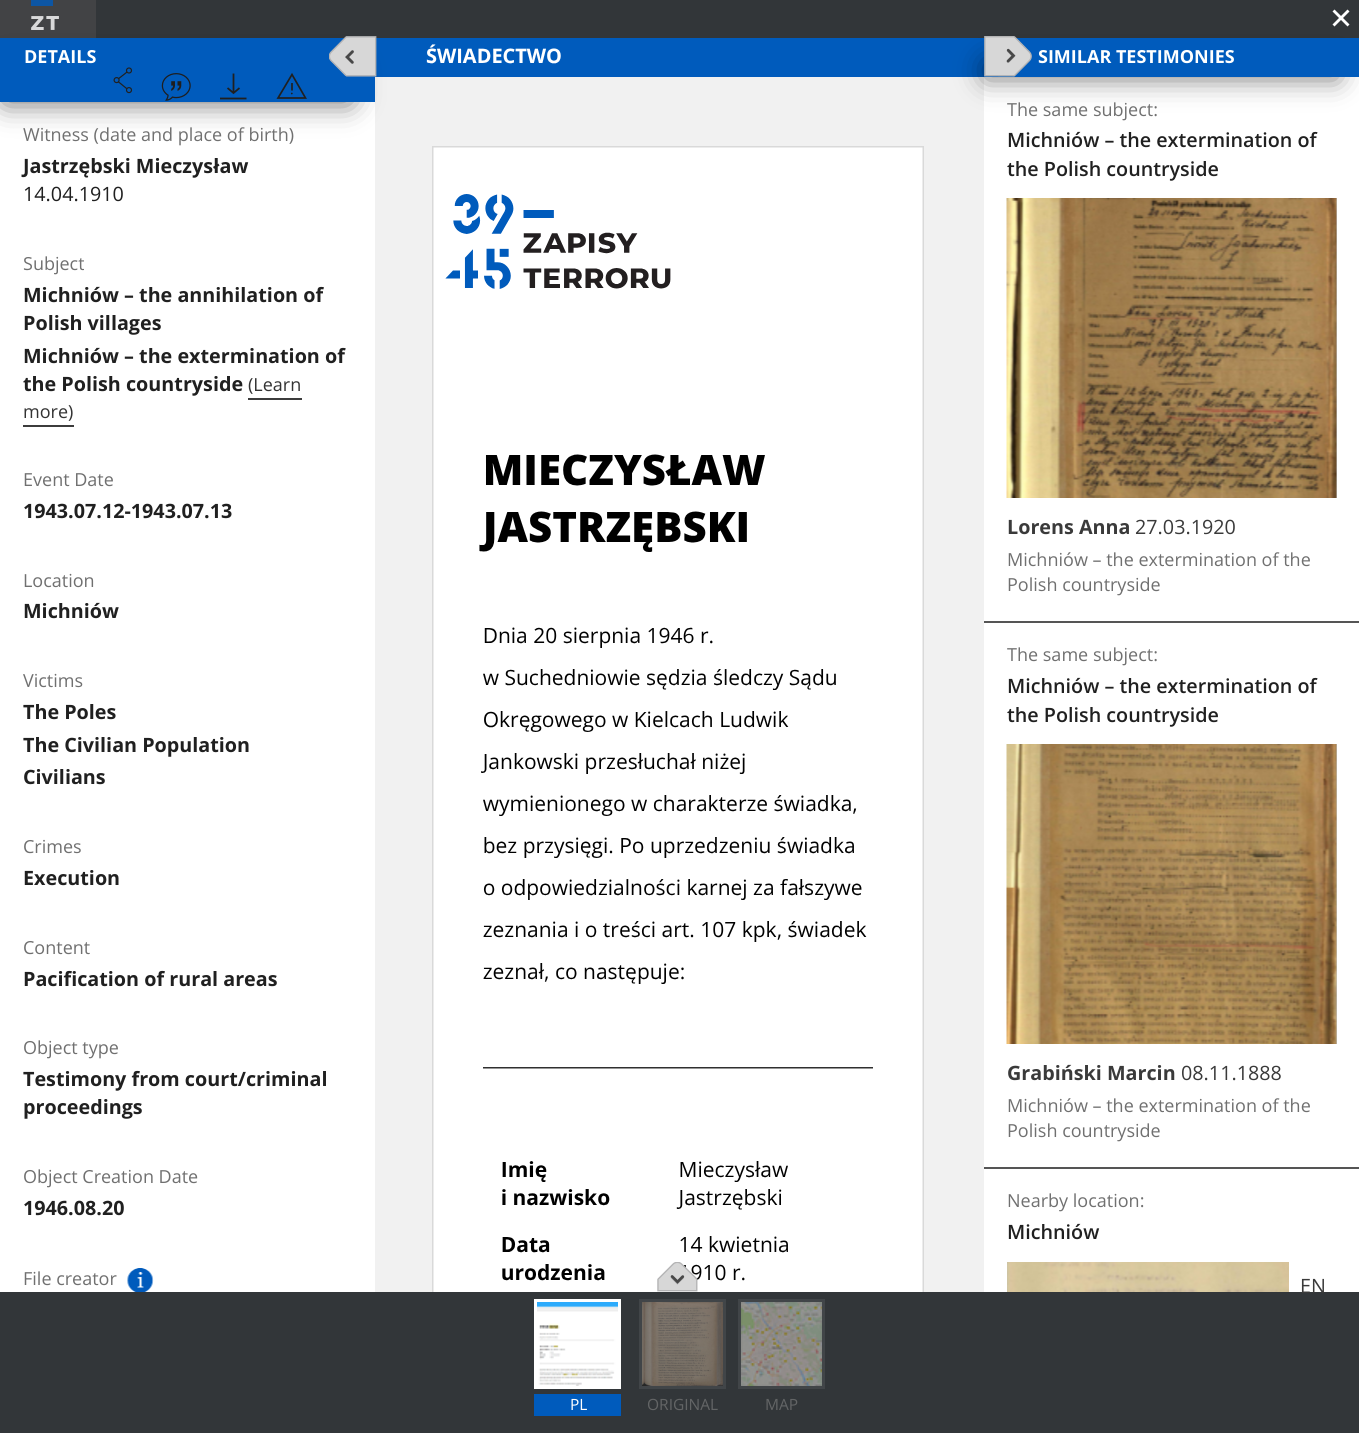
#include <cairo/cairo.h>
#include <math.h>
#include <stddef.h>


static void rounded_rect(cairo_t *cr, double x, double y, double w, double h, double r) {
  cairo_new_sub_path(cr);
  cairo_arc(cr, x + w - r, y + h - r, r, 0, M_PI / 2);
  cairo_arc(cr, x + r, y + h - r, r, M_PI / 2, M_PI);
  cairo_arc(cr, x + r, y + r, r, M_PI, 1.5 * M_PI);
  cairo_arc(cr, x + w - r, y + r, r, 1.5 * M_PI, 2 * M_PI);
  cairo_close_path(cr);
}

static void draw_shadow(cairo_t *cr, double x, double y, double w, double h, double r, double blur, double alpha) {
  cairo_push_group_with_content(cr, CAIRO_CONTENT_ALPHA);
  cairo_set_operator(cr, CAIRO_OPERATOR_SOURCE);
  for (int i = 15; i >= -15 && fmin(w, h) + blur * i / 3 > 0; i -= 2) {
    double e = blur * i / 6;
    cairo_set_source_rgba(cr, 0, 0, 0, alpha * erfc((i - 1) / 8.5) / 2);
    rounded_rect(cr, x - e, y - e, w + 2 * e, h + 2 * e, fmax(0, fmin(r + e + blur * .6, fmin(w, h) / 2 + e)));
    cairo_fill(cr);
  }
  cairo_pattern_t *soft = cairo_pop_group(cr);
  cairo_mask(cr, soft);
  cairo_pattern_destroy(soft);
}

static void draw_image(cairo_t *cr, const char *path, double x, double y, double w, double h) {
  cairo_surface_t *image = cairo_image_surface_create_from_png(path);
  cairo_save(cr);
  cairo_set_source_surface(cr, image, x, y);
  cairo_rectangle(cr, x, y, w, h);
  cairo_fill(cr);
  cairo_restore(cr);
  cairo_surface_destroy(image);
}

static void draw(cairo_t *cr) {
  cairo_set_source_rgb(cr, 50 / 255.0, 54 / 255.0, 57 / 255.0);
  cairo_paint(cr);
  cairo_set_source_rgb(cr, 66 / 255.0, 67 / 255.0, 69 / 255.0);
  cairo_rectangle(cr, 0, 0, 96, 38);
  cairo_fill(cr);
  draw_image(cr, "images/1.png", 31, 0, 28, 30);
  cairo_set_source_rgb(cr, 1, 1, 1);
  cairo_new_path(cr);
  cairo_move_to(cr, 1332.5, 24.5);
  cairo_line_to(cr, 1347.5, 9.5);
  cairo_line_to(cr, 1349.5, 11.5);
  cairo_line_to(cr, 1334.5, 26.5);
  cairo_close_path(cr);
  cairo_fill(cr);
  cairo_new_path(cr);
  cairo_move_to(cr, 1334.5, 9.5);
  cairo_line_to(cr, 1349.5, 24.5);
  cairo_line_to(cr, 1347.5, 26.5);
  cairo_line_to(cr, 1332.5, 11.5);
  cairo_close_path(cr);
  cairo_fill(cr);
  cairo_rectangle(cr, 0, 102, 375, 1190);
  cairo_fill(cr);
  draw_image(cr, "images/6.png", 375, 38, 609, 1254);
  cairo_set_source_rgb(cr, 0, 0, 0);
  draw_shadow(cr, 5, 66, 345, 35, 0, 15, 0.65);
  cairo_set_source_rgb(cr, 0, 91 / 255.0, 188 / 255.0);
  cairo_rectangle(cr, 0, 38, 375, 64);
  cairo_fill(cr);
  draw_image(cr, "images/2.png", 113, 67, 20, 27);
  draw_image(cr, "images/3.png", 161, 73, 30, 28);
  cairo_new_path(cr);
  cairo_move_to(cr, 220, 98.5);
  cairo_line_to(cr, 246.5, 98.5);
  cairo_move_to(cr, 233.5, 73.5);
  cairo_line_to(cr, 233.5, 93);
  cairo_move_to(cr, 233.5, 93);
  cairo_line_to(cr, 227.5, 88);
  cairo_line_to(cr, 233.5, 93);
  cairo_line_to(cr, 239.5, 88);
  cairo_set_source_rgb(cr, 32 / 255.0, 32 / 255.0, 32 / 255.0);
  cairo_set_line_width(cr, 1.8);
  cairo_stroke(cr);
  cairo_new_path(cr);
  cairo_move_to(cr, 292, 98);
  cairo_line_to(cr, 278, 98);
  cairo_line_to(cr, 292, 74.5);
  cairo_line_to(cr, 305.5, 98);
  cairo_close_path(cr);
  cairo_move_to(cr, 292, 83);
  cairo_line_to(cr, 292, 90.5);
  cairo_set_line_width(cr, 1.7);
  cairo_stroke(cr);
  cairo_arc(cr, 291.8, 93.5, 0.9, 0, 2 * M_PI);
  cairo_fill(cr);
  draw_image(cr, "images/4.png", 329, 36, 48, 41);
  cairo_set_source_rgb(cr, 60 / 255.0, 60 / 255.0, 60 / 255.0);
  cairo_rectangle(cr, 248, 398, 54, 2);
  cairo_fill(cr);
  cairo_rectangle(cr, 23, 425, 51, 2);
  cairo_fill(cr);
  draw_image(cr, "images/5.png", 127, 1268, 27, 24);
  cairo_set_source_rgb(cr, 1, 1, 1);
  cairo_rectangle(cr, 984, 77, 375, 1215);
  cairo_fill(cr);
  cairo_set_source_rgb(cr, 0, 0, 0);
  draw_shadow(cr, 989, 66, 345, 9, 0, 15, 0.65);
  cairo_set_source_rgb(cr, 0, 91 / 255.0, 188 / 255.0);
  cairo_rectangle(cr, 984, 38, 375, 39);
  cairo_fill(cr);
  draw_image(cr, "images/7.png", 984, 36, 48, 41);
  cairo_set_source_rgb(cr, 85 / 255.0, 85 / 255.0, 85 / 255.0);
  cairo_rectangle(cr, 984, 621, 375, 2);
  cairo_fill(cr);
  cairo_set_source_rgb(cr, 192 / 255.0, 192 / 255.0, 192 / 255.0);
  cairo_rectangle(cr, 1336, 198, 1, 300);
  cairo_fill(cr);
  draw_image(cr, "images/8.png", 1006, 198, 331, 300);
  cairo_set_source_rgb(cr, 85 / 255.0, 85 / 255.0, 85 / 255.0);
  cairo_rectangle(cr, 984, 1167, 375, 2);
  cairo_fill(cr);
  cairo_set_source_rgb(cr, 192 / 255.0, 192 / 255.0, 192 / 255.0);
  cairo_rectangle(cr, 1336, 744, 1, 300);
  cairo_fill(cr);
  draw_image(cr, "images/9.png", 1006, 744, 331, 300);
  draw_image(cr, "images/10.png", 1007, 1262, 282, 30);
  cairo_set_source_rgb(cr, 50 / 255.0, 54 / 255.0, 57 / 255.0);
  cairo_rectangle(cr, 1301, 1292, 23, 1);
  cairo_fill(cr);
  draw_image(cr, "images/11.png", 657, 1262, 41, 30);
  cairo_rectangle(cr, 535.5, 1300.5, 84, 87);
  cairo_set_source_rgb(cr, 1, 1, 1);
  cairo_set_line_width(cr, 3);
  cairo_stroke(cr);
  draw_image(cr, "images/12.png", 537, 1302, 81, 84);
  cairo_set_source_rgb(cr, 0, 91 / 255.0, 188 / 255.0);
  cairo_rectangle(cr, 534, 1394, 87, 22);
  cairo_fill(cr);
  cairo_rectangle(cr, 640.5, 1300.5, 84, 87);
  cairo_set_source_rgb(cr, 65 / 255.0, 69 / 255.0, 72 / 255.0);
  cairo_stroke(cr);
  draw_image(cr, "images/13.png", 642, 1302, 81, 84);
  cairo_rectangle(cr, 739.5, 1300.5, 84, 87);
  cairo_stroke(cr);
  draw_image(cr, "images/14.png", 741, 1302, 81, 84);
  cairo_select_font_face(cr, "Open Sans", CAIRO_FONT_SLANT_NORMAL, CAIRO_FONT_WEIGHT_BOLD);
  cairo_set_font_size(cr, 18);
  cairo_set_source_rgb(cr, 1, 1, 1);
  cairo_move_to(cr, 24, 63);
  cairo_show_text(cr, "DETAILS");
  cairo_select_font_face(cr, "Open Sans", CAIRO_FONT_SLANT_NORMAL, CAIRO_FONT_WEIGHT_NORMAL);
  cairo_set_source_rgb(cr, 112 / 255.0, 112 / 255.0, 112 / 255.0);
  cairo_move_to(cr, 23, 141);
  cairo_show_text(cr, "Witness (date and place of birth)");
  cairo_select_font_face(cr, "Open Sans", CAIRO_FONT_SLANT_NORMAL, CAIRO_FONT_WEIGHT_BOLD);
  cairo_set_font_size(cr, 19.75);
  cairo_set_source_rgb(cr, 32 / 255.0, 32 / 255.0, 32 / 255.0);
  cairo_move_to(cr, 23, 173);
  cairo_show_text(cr, "Jastrzębski Mieczysław");
  cairo_select_font_face(cr, "Open Sans", CAIRO_FONT_SLANT_NORMAL, CAIRO_FONT_WEIGHT_NORMAL);
  cairo_move_to(cr, 23, 201);
  cairo_show_text(cr, "14.04.1910");
  cairo_set_font_size(cr, 18);
  cairo_set_source_rgb(cr, 112 / 255.0, 112 / 255.0, 112 / 255.0);
  cairo_move_to(cr, 23, 270);
  cairo_show_text(cr, "Subject");
  cairo_select_font_face(cr, "Open Sans", CAIRO_FONT_SLANT_NORMAL, CAIRO_FONT_WEIGHT_BOLD);
  cairo_set_font_size(cr, 19.75);
  cairo_set_source_rgb(cr, 32 / 255.0, 32 / 255.0, 32 / 255.0);
  cairo_move_to(cr, 23, 302);
  cairo_show_text(cr, "Michniów – the annihilation of");
  cairo_move_to(cr, 23, 330);
  cairo_show_text(cr, "Polish villages");
  cairo_move_to(cr, 23, 363);
  cairo_show_text(cr, "Michniów – the extermination of");
  cairo_move_to(cr, 23, 391);
  cairo_show_text(cr, "the Polish countryside");
  cairo_select_font_face(cr, "Open Sans", CAIRO_FONT_SLANT_NORMAL, CAIRO_FONT_WEIGHT_NORMAL);
  cairo_set_font_size(cr, 18);
  cairo_set_source_rgb(cr, 51 / 255.0, 51 / 255.0, 51 / 255.0);
  cairo_move_to(cr, 248, 391);
  cairo_show_text(cr, "(Learn");
  cairo_move_to(cr, 23, 418);
  cairo_show_text(cr, "more)");
  cairo_set_source_rgb(cr, 112 / 255.0, 112 / 255.0, 112 / 255.0);
  cairo_move_to(cr, 23, 486);
  cairo_show_text(cr, "Event Date");
  cairo_select_font_face(cr, "Open Sans", CAIRO_FONT_SLANT_NORMAL, CAIRO_FONT_WEIGHT_BOLD);
  cairo_set_font_size(cr, 19.75);
  cairo_set_source_rgb(cr, 32 / 255.0, 32 / 255.0, 32 / 255.0);
  cairo_move_to(cr, 23, 518);
  cairo_show_text(cr, "1943.07.12-1943.07.13");
  cairo_select_font_face(cr, "Open Sans", CAIRO_FONT_SLANT_NORMAL, CAIRO_FONT_WEIGHT_NORMAL);
  cairo_set_font_size(cr, 18);
  cairo_set_source_rgb(cr, 112 / 255.0, 112 / 255.0, 112 / 255.0);
  cairo_move_to(cr, 23, 587);
  cairo_show_text(cr, "Location");
  cairo_select_font_face(cr, "Open Sans", CAIRO_FONT_SLANT_NORMAL, CAIRO_FONT_WEIGHT_BOLD);
  cairo_set_font_size(cr, 19.75);
  cairo_set_source_rgb(cr, 32 / 255.0, 32 / 255.0, 32 / 255.0);
  cairo_move_to(cr, 23, 618);
  cairo_show_text(cr, "Michniów");
  cairo_select_font_face(cr, "Open Sans", CAIRO_FONT_SLANT_NORMAL, CAIRO_FONT_WEIGHT_NORMAL);
  cairo_set_font_size(cr, 18);
  cairo_set_source_rgb(cr, 112 / 255.0, 112 / 255.0, 112 / 255.0);
  cairo_move_to(cr, 23, 687);
  cairo_show_text(cr, "Victims");
  cairo_select_font_face(cr, "Open Sans", CAIRO_FONT_SLANT_NORMAL, CAIRO_FONT_WEIGHT_BOLD);
  cairo_set_font_size(cr, 19.75);
  cairo_set_source_rgb(cr, 32 / 255.0, 32 / 255.0, 32 / 255.0);
  cairo_move_to(cr, 23, 719);
  cairo_show_text(cr, "The Poles");
  cairo_move_to(cr, 23, 752);
  cairo_show_text(cr, "The Civilian Population");
  cairo_move_to(cr, 23, 784);
  cairo_show_text(cr, "Civilians");
  cairo_select_font_face(cr, "Open Sans", CAIRO_FONT_SLANT_NORMAL, CAIRO_FONT_WEIGHT_NORMAL);
  cairo_set_font_size(cr, 18);
  cairo_set_source_rgb(cr, 112 / 255.0, 112 / 255.0, 112 / 255.0);
  cairo_move_to(cr, 23, 853);
  cairo_show_text(cr, "Crimes");
  cairo_select_font_face(cr, "Open Sans", CAIRO_FONT_SLANT_NORMAL, CAIRO_FONT_WEIGHT_BOLD);
  cairo_set_font_size(cr, 19.75);
  cairo_set_source_rgb(cr, 32 / 255.0, 32 / 255.0, 32 / 255.0);
  cairo_move_to(cr, 23, 885);
  cairo_show_text(cr, "Execution");
  cairo_select_font_face(cr, "Open Sans", CAIRO_FONT_SLANT_NORMAL, CAIRO_FONT_WEIGHT_NORMAL);
  cairo_set_font_size(cr, 18);
  cairo_set_source_rgb(cr, 112 / 255.0, 112 / 255.0, 112 / 255.0);
  cairo_move_to(cr, 23, 954);
  cairo_show_text(cr, "Content");
  cairo_select_font_face(cr, "Open Sans", CAIRO_FONT_SLANT_NORMAL, CAIRO_FONT_WEIGHT_BOLD);
  cairo_set_font_size(cr, 19.75);
  cairo_set_source_rgb(cr, 32 / 255.0, 32 / 255.0, 32 / 255.0);
  cairo_move_to(cr, 23, 986);
  cairo_show_text(cr, "Pacification of rural areas");
  cairo_select_font_face(cr, "Open Sans", CAIRO_FONT_SLANT_NORMAL, CAIRO_FONT_WEIGHT_NORMAL);
  cairo_set_font_size(cr, 18);
  cairo_set_source_rgb(cr, 112 / 255.0, 112 / 255.0, 112 / 255.0);
  cairo_move_to(cr, 23, 1054);
  cairo_show_text(cr, "Object type");
  cairo_select_font_face(cr, "Open Sans", CAIRO_FONT_SLANT_NORMAL, CAIRO_FONT_WEIGHT_BOLD);
  cairo_set_font_size(cr, 19.75);
  cairo_set_source_rgb(cr, 32 / 255.0, 32 / 255.0, 32 / 255.0);
  cairo_move_to(cr, 23, 1086);
  cairo_show_text(cr, "Testimony from court/criminal");
  cairo_move_to(cr, 23, 1114);
  cairo_show_text(cr, "proceedings");
  cairo_select_font_face(cr, "Open Sans", CAIRO_FONT_SLANT_NORMAL, CAIRO_FONT_WEIGHT_NORMAL);
  cairo_set_font_size(cr, 18);
  cairo_set_source_rgb(cr, 112 / 255.0, 112 / 255.0, 112 / 255.0);
  cairo_move_to(cr, 23, 1183);
  cairo_show_text(cr, "Object Creation Date");
  cairo_select_font_face(cr, "Open Sans", CAIRO_FONT_SLANT_NORMAL, CAIRO_FONT_WEIGHT_BOLD);
  cairo_set_font_size(cr, 19.75);
  cairo_set_source_rgb(cr, 32 / 255.0, 32 / 255.0, 32 / 255.0);
  cairo_move_to(cr, 23, 1215);
  cairo_show_text(cr, "1946.08.20");
  cairo_select_font_face(cr, "Open Sans", CAIRO_FONT_SLANT_NORMAL, CAIRO_FONT_WEIGHT_NORMAL);
  cairo_set_font_size(cr, 18);
  cairo_set_source_rgb(cr, 112 / 255.0, 112 / 255.0, 112 / 255.0);
  cairo_move_to(cr, 23, 1285);
  cairo_show_text(cr, "File creator");
  cairo_select_font_face(cr, "Open Sans", CAIRO_FONT_SLANT_NORMAL, CAIRO_FONT_WEIGHT_BOLD);
  cairo_set_source_rgb(cr, 1, 1, 1);
  cairo_move_to(cr, 1038, 63);
  cairo_show_text(cr, "SIMILAR TESTIMONIES");
  cairo_select_font_face(cr, "Open Sans", CAIRO_FONT_SLANT_NORMAL, CAIRO_FONT_WEIGHT_NORMAL);
  cairo_set_source_rgb(cr, 112 / 255.0, 112 / 255.0, 112 / 255.0);
  cairo_move_to(cr, 1007, 116);
  cairo_show_text(cr, "The same subject:");
  cairo_select_font_face(cr, "Open Sans SemiBold", CAIRO_FONT_SLANT_NORMAL, CAIRO_FONT_WEIGHT_NORMAL);
  cairo_set_font_size(cr, 19.75);
  cairo_set_source_rgb(cr, 32 / 255.0, 32 / 255.0, 32 / 255.0);
  cairo_move_to(cr, 1007, 147);
  cairo_show_text(cr, "Michniów – the extermination of");
  cairo_move_to(cr, 1007, 176);
  cairo_show_text(cr, "the Polish countryside");
  cairo_select_font_face(cr, "Open Sans", CAIRO_FONT_SLANT_NORMAL, CAIRO_FONT_WEIGHT_BOLD);
  cairo_set_source_rgb(cr, 58 / 255.0, 58 / 255.0, 58 / 255.0);
  cairo_move_to(cr, 1007, 534);
  cairo_show_text(cr, "Lorens Anna");
  cairo_select_font_face(cr, "Open Sans", CAIRO_FONT_SLANT_NORMAL, CAIRO_FONT_WEIGHT_NORMAL);
  cairo_move_to(cr, 1135, 534);
  cairo_show_text(cr, "27.03.1920");
  cairo_set_font_size(cr, 18);
  cairo_set_source_rgb(cr, 112 / 255.0, 112 / 255.0, 112 / 255.0);
  cairo_move_to(cr, 1007, 566);
  cairo_show_text(cr, "Michniów – the extermination of the");
  cairo_move_to(cr, 1007, 591);
  cairo_show_text(cr, "Polish countryside");
  cairo_move_to(cr, 1007, 661);
  cairo_show_text(cr, "The same subject:");
  cairo_select_font_face(cr, "Open Sans SemiBold", CAIRO_FONT_SLANT_NORMAL, CAIRO_FONT_WEIGHT_NORMAL);
  cairo_set_font_size(cr, 19.75);
  cairo_set_source_rgb(cr, 32 / 255.0, 32 / 255.0, 32 / 255.0);
  cairo_move_to(cr, 1007, 693);
  cairo_show_text(cr, "Michniów – the extermination of");
  cairo_move_to(cr, 1007, 722);
  cairo_show_text(cr, "the Polish countryside");
  cairo_select_font_face(cr, "Open Sans", CAIRO_FONT_SLANT_NORMAL, CAIRO_FONT_WEIGHT_BOLD);
  cairo_set_source_rgb(cr, 58 / 255.0, 58 / 255.0, 58 / 255.0);
  cairo_move_to(cr, 1007, 1080);
  cairo_show_text(cr, "Grabiński Marcin");
  cairo_select_font_face(cr, "Open Sans", CAIRO_FONT_SLANT_NORMAL, CAIRO_FONT_WEIGHT_NORMAL);
  cairo_move_to(cr, 1181, 1080);
  cairo_show_text(cr, "08.11.1888");
  cairo_set_font_size(cr, 18);
  cairo_set_source_rgb(cr, 112 / 255.0, 112 / 255.0, 112 / 255.0);
  cairo_move_to(cr, 1007, 1112);
  cairo_show_text(cr, "Michniów – the extermination of the");
  cairo_move_to(cr, 1007, 1137);
  cairo_show_text(cr, "Polish countryside");
  cairo_move_to(cr, 1007, 1207);
  cairo_show_text(cr, "Nearby location:");
  cairo_select_font_face(cr, "Open Sans SemiBold", CAIRO_FONT_SLANT_NORMAL, CAIRO_FONT_WEIGHT_NORMAL);
  cairo_set_font_size(cr, 19.75);
  cairo_set_source_rgb(cr, 32 / 255.0, 32 / 255.0, 32 / 255.0);
  cairo_move_to(cr, 1007, 1239);
  cairo_show_text(cr, "Michniów");
  cairo_select_font_face(cr, "Open Sans", CAIRO_FONT_SLANT_NORMAL, CAIRO_FONT_WEIGHT_NORMAL);
  cairo_set_source_rgb(cr, 58 / 255.0, 58 / 255.0, 58 / 255.0);
  cairo_move_to(cr, 1300, 1293);
  cairo_show_text(cr, "EN");
  cairo_set_font_size(cr, 15.5);
  cairo_set_source_rgb(cr, 1, 1, 1);
  cairo_move_to(cr, 570, 1410);
  cairo_show_text(cr, "PL");
  cairo_set_source_rgb(cr, 99 / 255.0, 101 / 255.0, 102 / 255.0);
  cairo_move_to(cr, 647, 1410);
  cairo_show_text(cr, "ORIGINAL");
  cairo_move_to(cr, 765, 1410);
  cairo_show_text(cr, "MAP");
}

int main(void) {
  cairo_surface_t *surface = cairo_image_surface_create(CAIRO_FORMAT_RGB24, 1359, 1433);
  cairo_t *cr = cairo_create(surface);
  cairo_font_options_t *options = cairo_font_options_create();
  cairo_font_options_set_hint_metrics(options, CAIRO_HINT_METRICS_OFF);
  cairo_font_options_set_hint_style(options, CAIRO_HINT_STYLE_NONE);
  cairo_set_font_options(cr, options);
  cairo_set_miter_limit(cr, 4);
  draw(cr);
  cairo_surface_write_to_png(surface, "out.png");
  cairo_font_options_destroy(options);
  cairo_destroy(cr);
  cairo_surface_destroy(surface);
  return 0;
}
